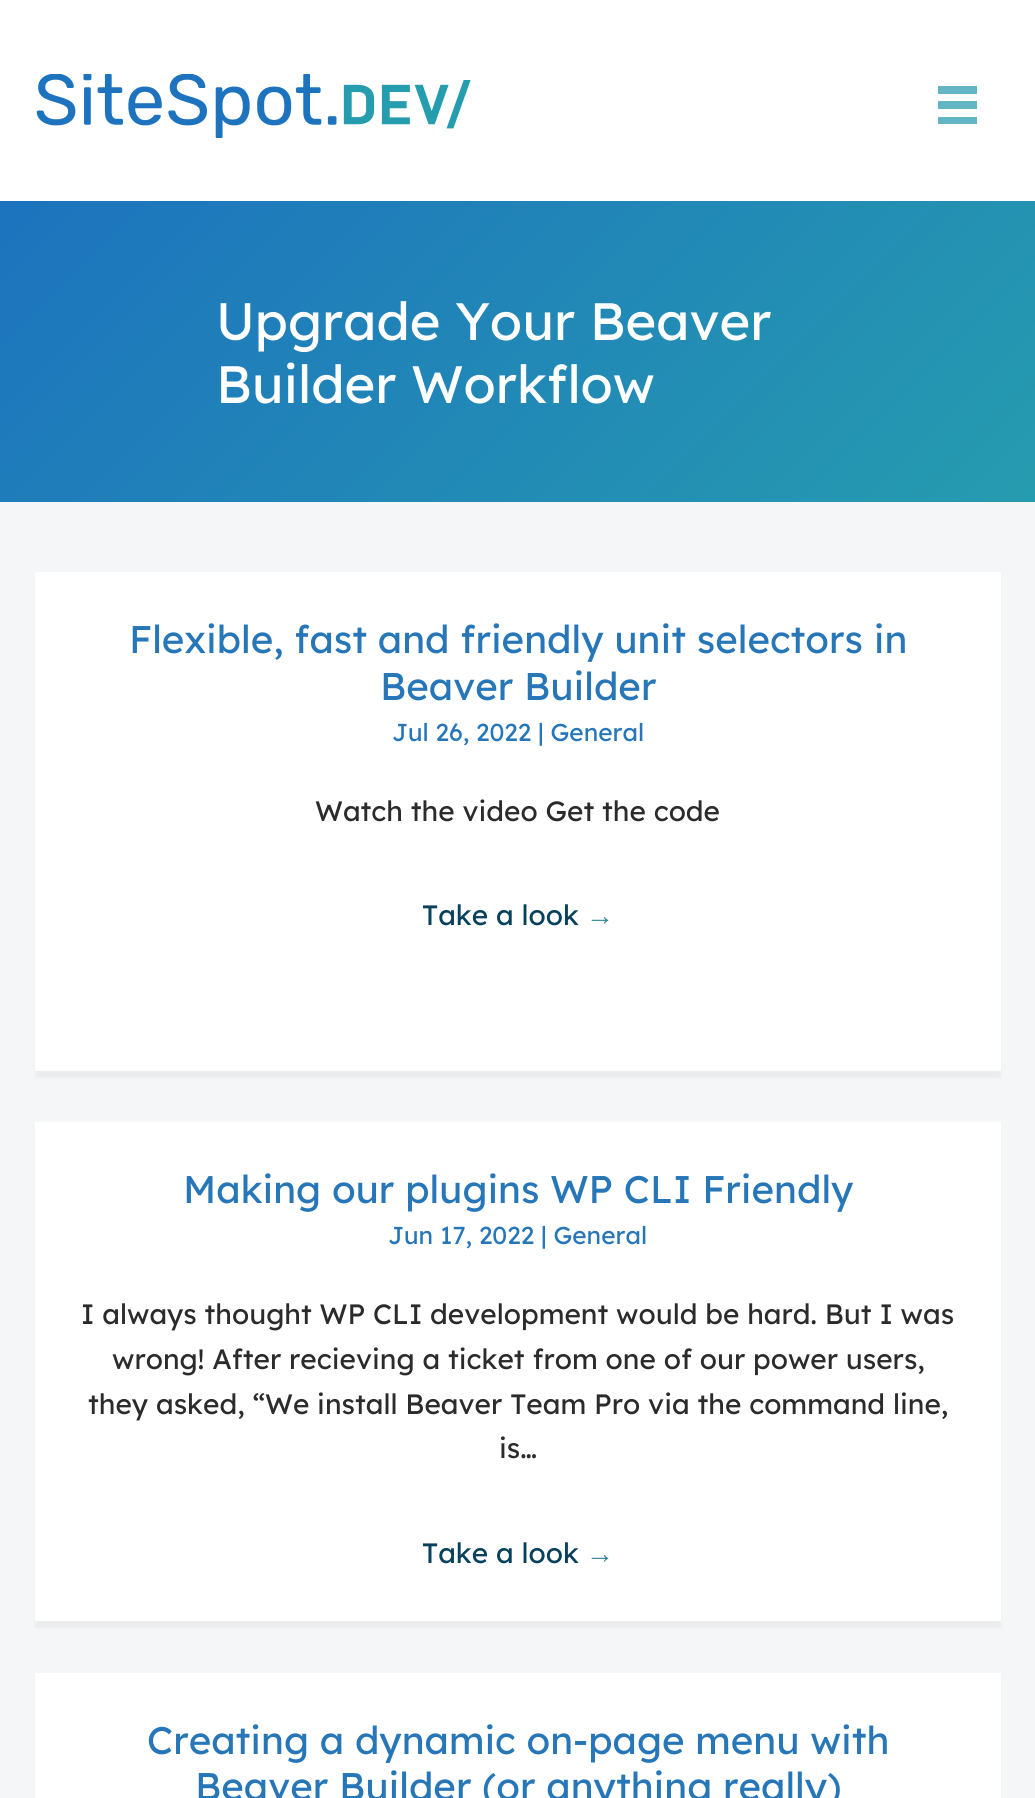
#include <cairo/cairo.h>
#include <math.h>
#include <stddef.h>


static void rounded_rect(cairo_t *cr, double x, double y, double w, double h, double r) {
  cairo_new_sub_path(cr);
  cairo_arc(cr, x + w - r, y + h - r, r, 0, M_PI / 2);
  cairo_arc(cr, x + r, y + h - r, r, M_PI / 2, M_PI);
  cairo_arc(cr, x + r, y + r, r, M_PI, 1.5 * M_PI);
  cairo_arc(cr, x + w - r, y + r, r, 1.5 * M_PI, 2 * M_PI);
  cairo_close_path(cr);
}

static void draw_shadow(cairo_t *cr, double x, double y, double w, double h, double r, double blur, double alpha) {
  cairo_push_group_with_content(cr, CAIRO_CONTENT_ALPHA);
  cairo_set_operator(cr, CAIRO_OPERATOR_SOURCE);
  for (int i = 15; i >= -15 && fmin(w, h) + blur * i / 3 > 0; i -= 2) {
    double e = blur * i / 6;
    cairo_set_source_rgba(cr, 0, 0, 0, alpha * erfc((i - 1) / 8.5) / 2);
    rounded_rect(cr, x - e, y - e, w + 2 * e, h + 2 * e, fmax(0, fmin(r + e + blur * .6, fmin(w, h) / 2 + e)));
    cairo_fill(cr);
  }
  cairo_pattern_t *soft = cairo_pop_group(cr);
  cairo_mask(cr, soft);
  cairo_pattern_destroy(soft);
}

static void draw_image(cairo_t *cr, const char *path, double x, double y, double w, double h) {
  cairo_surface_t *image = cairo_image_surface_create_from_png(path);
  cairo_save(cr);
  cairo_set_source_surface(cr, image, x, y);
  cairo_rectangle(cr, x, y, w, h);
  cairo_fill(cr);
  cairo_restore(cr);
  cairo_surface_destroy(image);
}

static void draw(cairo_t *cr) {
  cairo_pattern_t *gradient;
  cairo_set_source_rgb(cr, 1, 1, 1);
  cairo_paint(cr);
  draw_image(cr, "images/1.png", 36, 74, 435, 64);
  cairo_set_source_rgb(cr, 100 / 255.0, 181 / 255.0, 195 / 255.0);
  cairo_rectangle(cr, 938, 86, 39, 8);
  cairo_fill(cr);
  cairo_rectangle(cr, 938, 101, 39, 8);
  cairo_fill(cr);
  cairo_rectangle(cr, 938, 117, 39, 7);
  cairo_fill(cr);
  gradient = cairo_pattern_create_linear(184, 18, 852, 686);
  cairo_pattern_add_color_stop_rgba(gradient, 0, 29 / 255.0, 115 / 255.0, 190 / 255.0, 1);
  cairo_pattern_add_color_stop_rgba(gradient, 1, 38 / 255.0, 156 / 255.0, 175 / 255.0, 1);
  cairo_set_source(cr, gradient);
  cairo_pattern_destroy(gradient);
  cairo_rectangle(cr, 0, 201, 1035, 301);
  cairo_fill(cr);
  cairo_set_source_rgb(cr, 244 / 255.0, 246 / 255.0, 248 / 255.0);
  cairo_rectangle(cr, 0, 502, 1035, 1296);
  cairo_fill(cr);
  cairo_set_source_rgb(cr, 197 / 255.0, 197 / 255.0, 197 / 255.0);
  draw_shadow(cr, 35, 579, 966, 499, 0, 1, 0.2);
  cairo_set_source_rgb(cr, 1, 1, 1);
  cairo_rectangle(cr, 35, 572, 966, 499);
  cairo_fill(cr);
  cairo_set_source_rgb(cr, 197 / 255.0, 197 / 255.0, 197 / 255.0);
  draw_shadow(cr, 35, 1129, 966, 499, 0, 1, 0.2);
  cairo_set_source_rgb(cr, 1, 1, 1);
  cairo_rectangle(cr, 35, 1122, 966, 499);
  cairo_fill(cr);
  cairo_set_source_rgb(cr, 197 / 255.0, 197 / 255.0, 197 / 255.0);
  draw_shadow(cr, 35, 1680, 966, 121, 0, 1, 0.2);
  cairo_set_source_rgb(cr, 1, 1, 1);
  cairo_rectangle(cr, 35, 1673, 966, 125);
  cairo_fill(cr);
  cairo_select_font_face(cr, "Lexend", CAIRO_FONT_SLANT_NORMAL, CAIRO_FONT_WEIGHT_NORMAL);
  cairo_set_font_size(cr, 52.5);
  cairo_move_to(cr, 216, 340);
  cairo_show_text(cr, "Upgrade Your Beaver");
  cairo_move_to(cr, 216, 403);
  cairo_show_text(cr, "Builder Workflow");
  cairo_set_font_size(cr, 38.5);
  cairo_set_source_rgb(cr, 38 / 255.0, 118 / 255.0, 184 / 255.0);
  cairo_move_to(cr, 129, 653);
  cairo_show_text(cr, "Flexible, fast and friendly unit selectors in");
  cairo_move_to(cr, 380, 700);
  cairo_show_text(cr, "Beaver Builder");
  cairo_set_font_size(cr, 24.5);
  cairo_move_to(cr, 392, 741);
  cairo_show_text(cr, "Jul 26, 2022 | General");
  cairo_set_font_size(cr, 28);
  cairo_set_source_rgb(cr, 43 / 255.0, 43 / 255.0, 43 / 255.0);
  cairo_move_to(cr, 315, 821);
  cairo_show_text(cr, "Watch the video Get the code");
  cairo_set_source_rgb(cr, 8 / 255.0, 65 / 255.0, 92 / 255.0);
  cairo_move_to(cr, 422, 925);
  cairo_show_text(cr, "Take a look");
  cairo_select_font_face(cr, "Liberation Sans", CAIRO_FONT_SLANT_NORMAL, CAIRO_FONT_WEIGHT_NORMAL);
  cairo_set_source_rgb(cr, 56 / 255.0, 134 / 255.0, 151 / 255.0);
  cairo_move_to(cr, 586, 925);
  cairo_show_text(cr, "→");
  cairo_select_font_face(cr, "Lexend", CAIRO_FONT_SLANT_NORMAL, CAIRO_FONT_WEIGHT_NORMAL);
  cairo_set_font_size(cr, 38.5);
  cairo_set_source_rgb(cr, 38 / 255.0, 118 / 255.0, 184 / 255.0);
  cairo_move_to(cr, 183, 1203);
  cairo_show_text(cr, "Making our plugins WP CLI Friendly");
  cairo_set_font_size(cr, 24.5);
  cairo_move_to(cr, 388, 1244);
  cairo_show_text(cr, "Jun 17, 2022 | General");
  cairo_set_font_size(cr, 28);
  cairo_set_source_rgb(cr, 43 / 255.0, 43 / 255.0, 43 / 255.0);
  cairo_move_to(cr, 81, 1324);
  cairo_show_text(cr, "I always thought WP CLI development would be hard. But I was");
  cairo_move_to(cr, 112, 1369);
  cairo_show_text(cr, "wrong! After recieving a ticket from one of our power users,");
  cairo_move_to(cr, 88, 1414);
  cairo_show_text(cr, "they asked, “We install Beaver Team Pro via the command line,");
  cairo_move_to(cr, 499, 1458);
  cairo_show_text(cr, "is…");
  cairo_set_source_rgb(cr, 8 / 255.0, 65 / 255.0, 92 / 255.0);
  cairo_move_to(cr, 422, 1563);
  cairo_show_text(cr, "Take a look");
  cairo_select_font_face(cr, "Liberation Sans", CAIRO_FONT_SLANT_NORMAL, CAIRO_FONT_WEIGHT_NORMAL);
  cairo_set_source_rgb(cr, 56 / 255.0, 134 / 255.0, 151 / 255.0);
  cairo_move_to(cr, 586, 1563);
  cairo_show_text(cr, "→");
  cairo_select_font_face(cr, "Lexend", CAIRO_FONT_SLANT_NORMAL, CAIRO_FONT_WEIGHT_NORMAL);
  cairo_set_font_size(cr, 38.5);
  cairo_set_source_rgb(cr, 38 / 255.0, 118 / 255.0, 184 / 255.0);
  cairo_move_to(cr, 147, 1754);
  cairo_show_text(cr, "Creating a dynamic on-page menu with");
  cairo_move_to(cr, 195, 1800);
  cairo_show_text(cr, "Beaver Builder (or anything really)");
}

int main(void) {
  cairo_surface_t *surface = cairo_image_surface_create(CAIRO_FORMAT_RGB24, 1035, 1798);
  cairo_t *cr = cairo_create(surface);
  cairo_font_options_t *options = cairo_font_options_create();
  cairo_font_options_set_hint_metrics(options, CAIRO_HINT_METRICS_OFF);
  cairo_font_options_set_hint_style(options, CAIRO_HINT_STYLE_NONE);
  cairo_set_font_options(cr, options);
  cairo_set_miter_limit(cr, 4);
  draw(cr);
  cairo_surface_write_to_png(surface, "out.png");
  cairo_font_options_destroy(options);
  cairo_destroy(cr);
  cairo_surface_destroy(surface);
  return 0;
}
